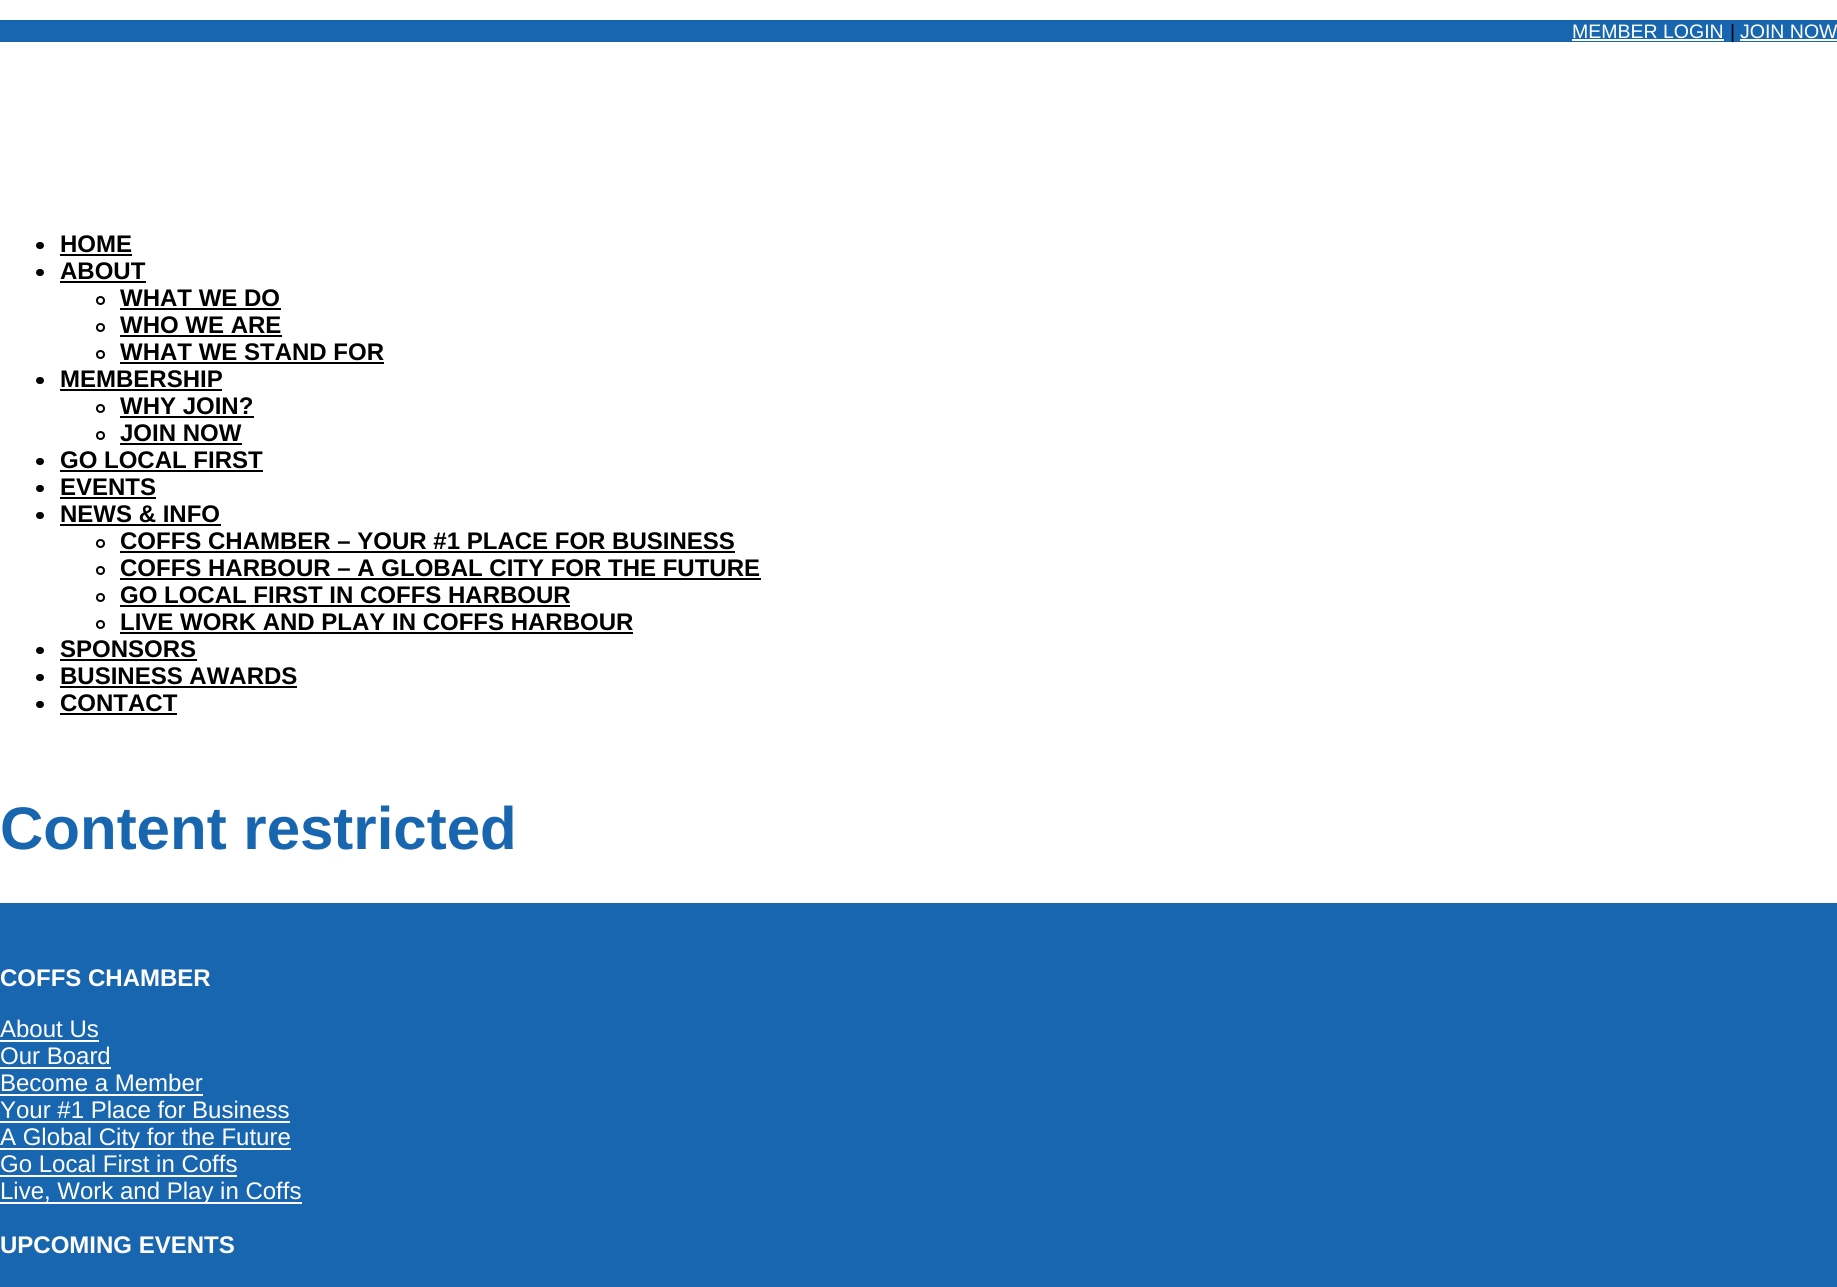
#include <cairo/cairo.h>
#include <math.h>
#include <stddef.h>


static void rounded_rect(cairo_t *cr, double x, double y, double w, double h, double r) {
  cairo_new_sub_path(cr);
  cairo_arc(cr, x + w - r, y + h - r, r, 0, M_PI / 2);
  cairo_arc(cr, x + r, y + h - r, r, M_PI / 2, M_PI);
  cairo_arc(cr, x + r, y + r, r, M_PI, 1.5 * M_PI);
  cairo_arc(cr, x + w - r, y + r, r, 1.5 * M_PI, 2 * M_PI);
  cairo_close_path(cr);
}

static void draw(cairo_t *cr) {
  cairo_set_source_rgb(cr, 1, 1, 1);
  cairo_paint(cr);
  cairo_set_source_rgb(cr, 25 / 255.0, 102 / 255.0, 176 / 255.0);
  cairo_rectangle(cr, 0, 20, 1837, 22);
  cairo_fill(cr);
  cairo_set_source_rgb(cr, 1, 1, 1);
  cairo_rectangle(cr, 1572, 39, 152, 2);
  cairo_fill(cr);
  cairo_rectangle(cr, 1740, 39, 97, 2);
  cairo_fill(cr);
  cairo_set_source_rgb(cr, 0, 0, 0);
  rounded_rect(cr, 36, 242, 8, 7, 3.5);
  cairo_fill(cr);
  cairo_rectangle(cr, 60, 254, 72, 2);
  cairo_fill(cr);
  rounded_rect(cr, 36, 269, 8, 7, 3.5);
  cairo_fill(cr);
  cairo_rectangle(cr, 60, 281, 86, 2);
  cairo_fill(cr);
  cairo_arc(cr, 100.5, 300.5, 3.5, 0, 2 * M_PI);
  cairo_stroke(cr);
  cairo_rectangle(cr, 120, 308, 161, 2);
  cairo_fill(cr);
  cairo_arc(cr, 100.5, 327.5, 3.5, 0, 2 * M_PI);
  cairo_stroke(cr);
  cairo_rectangle(cr, 120, 335, 162, 2);
  cairo_fill(cr);
  cairo_arc(cr, 100.5, 354.5, 3.5, 0, 2 * M_PI);
  cairo_stroke(cr);
  cairo_rectangle(cr, 120, 362, 264, 2);
  cairo_fill(cr);
  rounded_rect(cr, 36, 377, 8, 7, 3.5);
  cairo_fill(cr);
  cairo_rectangle(cr, 60, 389, 162, 2);
  cairo_fill(cr);
  cairo_arc(cr, 100.5, 408.5, 3.5, 0, 2 * M_PI);
  cairo_stroke(cr);
  cairo_rectangle(cr, 120, 416, 134, 2);
  cairo_fill(cr);
  cairo_arc(cr, 100.5, 435.5, 3.5, 0, 2 * M_PI);
  cairo_stroke(cr);
  cairo_rectangle(cr, 120, 443, 122, 2);
  cairo_fill(cr);
  rounded_rect(cr, 36, 458, 8, 7, 3.5);
  cairo_fill(cr);
  cairo_rectangle(cr, 60, 470, 203, 2);
  cairo_fill(cr);
  rounded_rect(cr, 36, 485, 8, 7, 3.5);
  cairo_fill(cr);
  cairo_rectangle(cr, 60, 497, 96, 2);
  cairo_fill(cr);
  rounded_rect(cr, 36, 512, 8, 7, 3.5);
  cairo_fill(cr);
  cairo_rectangle(cr, 60, 524, 161, 2);
  cairo_fill(cr);
  cairo_arc(cr, 100.5, 543.5, 3.5, 0, 2 * M_PI);
  cairo_stroke(cr);
  cairo_rectangle(cr, 120, 551, 615, 2);
  cairo_fill(cr);
  cairo_arc(cr, 100.5, 570.5, 3.5, 0, 2 * M_PI);
  cairo_stroke(cr);
  cairo_rectangle(cr, 120, 578, 641, 2);
  cairo_fill(cr);
  cairo_arc(cr, 100.5, 597.5, 3.5, 0, 2 * M_PI);
  cairo_stroke(cr);
  cairo_rectangle(cr, 120, 605, 450, 2);
  cairo_fill(cr);
  cairo_arc(cr, 100.5, 624.5, 3.5, 0, 2 * M_PI);
  cairo_stroke(cr);
  cairo_rectangle(cr, 120, 632, 513, 2);
  cairo_fill(cr);
  rounded_rect(cr, 36, 647, 8, 7, 3.5);
  cairo_fill(cr);
  cairo_rectangle(cr, 60, 659, 137, 2);
  cairo_fill(cr);
  rounded_rect(cr, 36, 674, 8, 7, 3.5);
  cairo_fill(cr);
  cairo_rectangle(cr, 60, 686, 237, 2);
  cairo_fill(cr);
  rounded_rect(cr, 36, 701, 8, 7, 3.5);
  cairo_fill(cr);
  cairo_rectangle(cr, 60, 713, 117, 2);
  cairo_fill(cr);
  cairo_set_source_rgb(cr, 25 / 255.0, 102 / 255.0, 176 / 255.0);
  cairo_rectangle(cr, 0, 903, 1837, 384);
  cairo_fill(cr);
  cairo_set_source_rgb(cr, 1, 1, 1);
  cairo_rectangle(cr, 0, 1040, 99, 2);
  cairo_fill(cr);
  cairo_rectangle(cr, 0, 1067, 111, 2);
  cairo_fill(cr);
  cairo_rectangle(cr, 0, 1094, 203, 2);
  cairo_fill(cr);
  cairo_rectangle(cr, 0, 1121, 290, 2);
  cairo_fill(cr);
  cairo_rectangle(cr, 0, 1148, 291, 2);
  cairo_fill(cr);
  cairo_rectangle(cr, 0, 1175, 237, 2);
  cairo_fill(cr);
  cairo_rectangle(cr, 0, 1202, 302, 2);
  cairo_fill(cr);
  cairo_select_font_face(cr, "Arimo", CAIRO_FONT_SLANT_NORMAL, CAIRO_FONT_WEIGHT_NORMAL);
  cairo_set_font_size(cr, 19.5);
  cairo_move_to(cr, 1572, 38);
  cairo_show_text(cr, "MEMBER LOGIN");
  cairo_set_source_rgb(cr, 0, 0, 0);
  cairo_move_to(cr, 1730, 38);
  cairo_show_text(cr, "|");
  cairo_set_source_rgb(cr, 1, 1, 1);
  cairo_move_to(cr, 1740, 38);
  cairo_show_text(cr, "JOIN NOW");
  cairo_select_font_face(cr, "Arimo", CAIRO_FONT_SLANT_NORMAL, CAIRO_FONT_WEIGHT_BOLD);
  cairo_set_font_size(cr, 24);
  cairo_set_source_rgb(cr, 0, 0, 0);
  cairo_move_to(cr, 60, 252);
  cairo_show_text(cr, "HOME");
  cairo_move_to(cr, 60, 279);
  cairo_show_text(cr, "ABOUT");
  cairo_move_to(cr, 120, 306);
  cairo_show_text(cr, "WHAT WE DO");
  cairo_move_to(cr, 120, 333);
  cairo_show_text(cr, "WHO WE ARE");
  cairo_move_to(cr, 120, 360);
  cairo_show_text(cr, "WHAT WE STAND FOR");
  cairo_move_to(cr, 60, 387);
  cairo_show_text(cr, "MEMBERSHIP");
  cairo_move_to(cr, 120, 414);
  cairo_show_text(cr, "WHY JOIN?");
  cairo_move_to(cr, 120, 441);
  cairo_show_text(cr, "JOIN NOW");
  cairo_move_to(cr, 60, 468);
  cairo_show_text(cr, "GO LOCAL FIRST");
  cairo_move_to(cr, 60, 495);
  cairo_show_text(cr, "EVENTS");
  cairo_move_to(cr, 60, 522);
  cairo_show_text(cr, "NEWS & INFO");
  cairo_move_to(cr, 120, 549);
  cairo_show_text(cr, "COFFS CHAMBER – YOUR #1 PLACE FOR BUSINESS");
  cairo_move_to(cr, 120, 576);
  cairo_show_text(cr, "COFFS HARBOUR – A GLOBAL CITY FOR THE FUTURE");
  cairo_move_to(cr, 120, 603);
  cairo_show_text(cr, "GO LOCAL FIRST IN COFFS HARBOUR");
  cairo_move_to(cr, 120, 630);
  cairo_show_text(cr, "LIVE WORK AND PLAY IN COFFS HARBOUR");
  cairo_move_to(cr, 60, 657);
  cairo_show_text(cr, "SPONSORS");
  cairo_move_to(cr, 60, 684);
  cairo_show_text(cr, "BUSINESS AWARDS");
  cairo_move_to(cr, 60, 711);
  cairo_show_text(cr, "CONTACT");
  cairo_set_font_size(cr, 60);
  cairo_set_source_rgb(cr, 25 / 255.0, 102 / 255.0, 176 / 255.0);
  cairo_move_to(cr, 0, 849);
  cairo_show_text(cr, "Content restricted");
  cairo_set_font_size(cr, 24);
  cairo_set_source_rgb(cr, 1, 1, 1);
  cairo_move_to(cr, 0, 986);
  cairo_show_text(cr, "COFFS CHAMBER");
  cairo_select_font_face(cr, "Arimo", CAIRO_FONT_SLANT_NORMAL, CAIRO_FONT_WEIGHT_NORMAL);
  cairo_move_to(cr, 0, 1037);
  cairo_show_text(cr, "About Us");
  cairo_move_to(cr, 0, 1064);
  cairo_show_text(cr, "Our Board");
  cairo_move_to(cr, 0, 1091);
  cairo_show_text(cr, "Become a Member");
  cairo_move_to(cr, 0, 1118);
  cairo_show_text(cr, "Your #1 Place for Business");
  cairo_move_to(cr, 0, 1145);
  cairo_show_text(cr, "A Global City for the Future");
  cairo_move_to(cr, 0, 1172);
  cairo_show_text(cr, "Go Local First in Coffs");
  cairo_move_to(cr, 0, 1199);
  cairo_show_text(cr, "Live, Work and Play in Coffs");
  cairo_select_font_face(cr, "Arimo", CAIRO_FONT_SLANT_NORMAL, CAIRO_FONT_WEIGHT_BOLD);
  cairo_move_to(cr, 0, 1253);
  cairo_show_text(cr, "UPCOMING EVENTS");
}

int main(void) {
  cairo_surface_t *surface = cairo_image_surface_create(CAIRO_FORMAT_RGB24, 1837, 1287);
  cairo_t *cr = cairo_create(surface);
  cairo_font_options_t *options = cairo_font_options_create();
  cairo_font_options_set_hint_metrics(options, CAIRO_HINT_METRICS_OFF);
  cairo_font_options_set_hint_style(options, CAIRO_HINT_STYLE_NONE);
  cairo_set_font_options(cr, options);
  cairo_set_miter_limit(cr, 4);
  draw(cr);
  cairo_surface_write_to_png(surface, "out.png");
  cairo_font_options_destroy(options);
  cairo_destroy(cr);
  cairo_surface_destroy(surface);
  return 0;
}
